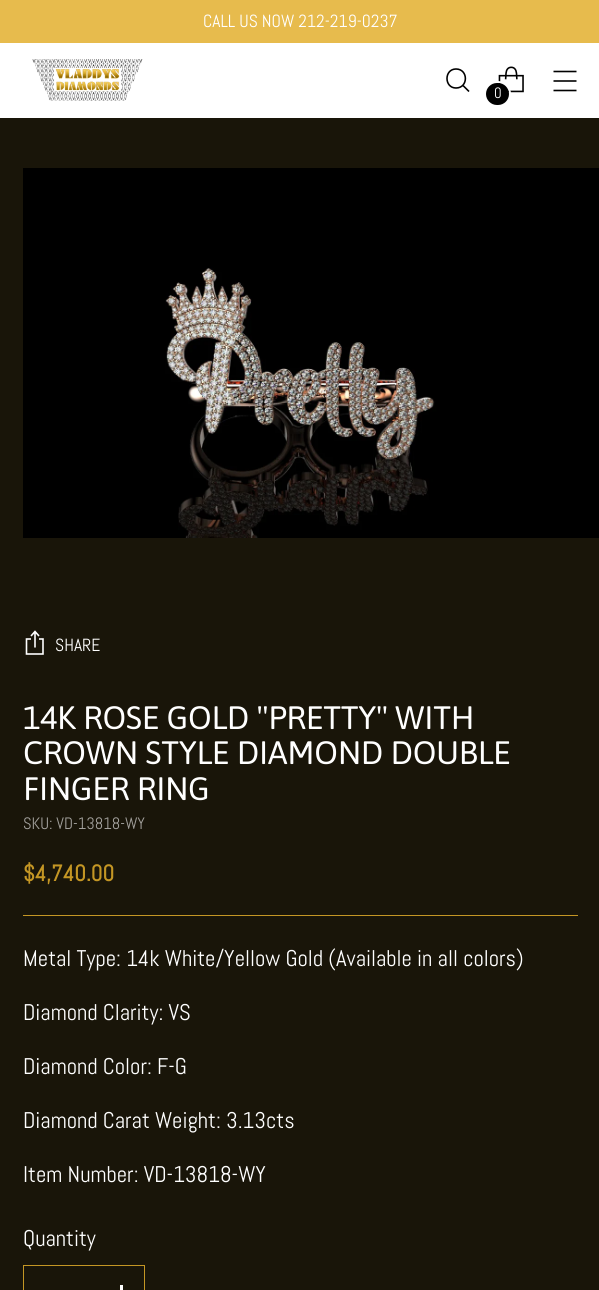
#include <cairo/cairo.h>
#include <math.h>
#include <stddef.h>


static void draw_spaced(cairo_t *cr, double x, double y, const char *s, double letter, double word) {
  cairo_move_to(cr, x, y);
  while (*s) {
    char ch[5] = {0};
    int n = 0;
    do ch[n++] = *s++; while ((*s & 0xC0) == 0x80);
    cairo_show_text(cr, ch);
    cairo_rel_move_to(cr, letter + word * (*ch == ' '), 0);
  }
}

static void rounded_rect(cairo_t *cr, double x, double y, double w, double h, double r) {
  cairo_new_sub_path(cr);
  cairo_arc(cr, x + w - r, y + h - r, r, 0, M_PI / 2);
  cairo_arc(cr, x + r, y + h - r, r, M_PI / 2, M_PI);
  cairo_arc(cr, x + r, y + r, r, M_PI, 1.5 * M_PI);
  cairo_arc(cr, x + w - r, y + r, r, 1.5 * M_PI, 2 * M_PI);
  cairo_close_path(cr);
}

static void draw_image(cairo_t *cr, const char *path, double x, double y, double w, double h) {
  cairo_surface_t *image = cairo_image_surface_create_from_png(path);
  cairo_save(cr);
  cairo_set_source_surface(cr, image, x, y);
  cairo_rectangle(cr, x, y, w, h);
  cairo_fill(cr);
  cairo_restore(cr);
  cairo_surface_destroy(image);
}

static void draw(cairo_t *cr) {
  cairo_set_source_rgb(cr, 25 / 255.0, 21 / 255.0, 9 / 255.0);
  cairo_paint(cr);
  cairo_set_source_rgb(cr, 231 / 255.0, 187 / 255.0, 77 / 255.0);
  cairo_rectangle(cr, 0, 0, 599, 43);
  cairo_fill(cr);
  cairo_set_source_rgb(cr, 1, 1, 1);
  cairo_rectangle(cr, 0, 43, 599, 75);
  cairo_fill(cr);
  draw_image(cr, "images/1.png", 32, 59, 111, 42);
  cairo_new_path(cr);
  cairo_move_to(cr, 456, 88);
  cairo_curve_to(cr, 468.5, 88, 468.5, 69, 456, 69);
  cairo_curve_to(cr, 444, 69, 444, 88, 456, 88);
  cairo_close_path(cr);
  cairo_set_source_rgb(cr, 0, 0, 0);
  cairo_set_line_width(cr, 1.6);
  cairo_set_line_cap(cr, CAIRO_LINE_CAP_ROUND);
  cairo_stroke(cr);
  cairo_new_path(cr);
  cairo_move_to(cr, 463, 85.5);
  cairo_line_to(cr, 469, 91.5);
  cairo_set_line_cap(cr, CAIRO_LINE_CAP_BUTT);
  cairo_stroke(cr);
  draw_image(cr, "images/2.png", 498, 66, 26, 27);
  rounded_rect(cr, 486, 82, 24, 25, 12);
  cairo_set_source_rgb(cr, 1, 1, 1);
  cairo_set_line_width(cr, 2);
  cairo_stroke(cr);
  cairo_set_source_rgb(cr, 0, 0, 0);
  rounded_rect(cr, 486, 83, 23, 22, 11);
  cairo_fill(cr);
  cairo_new_path(cr);
  cairo_move_to(cr, 553.5, 81);
  cairo_line_to(cr, 576.5, 81);
  cairo_move_to(cr, 553.5, 71.5);
  cairo_line_to(cr, 576.5, 71.5);
  cairo_move_to(cr, 553.5, 90.5);
  cairo_line_to(cr, 576.5, 90.5);
  cairo_set_line_width(cr, 1.6);
  cairo_stroke(cr);
  draw_image(cr, "images/3.png", 23, 168, 555, 370);
  cairo_rectangle(cr, 578, 168, 21, 370);
  cairo_fill(cr);
  cairo_new_path(cr);
  cairo_move_to(cr, 31, 639);
  cairo_line_to(cr, 26.5, 639);
  cairo_line_to(cr, 26.5, 654);
  cairo_line_to(cr, 43, 654);
  cairo_line_to(cr, 43, 639);
  cairo_line_to(cr, 39, 639);
  cairo_move_to(cr, 35, 647.5);
  cairo_line_to(cr, 35, 632.5);
  cairo_move_to(cr, 39, 636);
  cairo_line_to(cr, 35, 631.5);
  cairo_line_to(cr, 31, 636);
  cairo_set_source_rgb(cr, 1, 1, 1);
  cairo_stroke(cr);
  cairo_set_source_rgb(cr, 196 / 255.0, 150 / 255.0, 36 / 255.0);
  cairo_rectangle(cr, 23, 915, 555, 1);
  cairo_fill(cr);
  cairo_rectangle(cr, 23.5, 1265.5, 121, 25);
  cairo_set_line_width(cr, 1);
  cairo_stroke(cr);
  cairo_set_source_rgb(cr, 1, 1, 1);
  cairo_rectangle(cr, 120, 1285, 3, 5);
  cairo_fill(cr);
  cairo_select_font_face(cr, "Abel", CAIRO_FONT_SLANT_NORMAL, CAIRO_FONT_WEIGHT_NORMAL);
  cairo_set_font_size(cr, 17.6);
  cairo_move_to(cr, 203, 27);
  cairo_show_text(cr, "CALL US NOW 212-219-0237");
  cairo_set_font_size(cr, 15);
  cairo_move_to(cr, 494, 98);
  cairo_show_text(cr, "0");
  cairo_set_font_size(cr, 17.6);
  cairo_move_to(cr, 55, 651);
  cairo_show_text(cr, "SHARE");
  cairo_select_font_face(cr, "Asap", CAIRO_FONT_SLANT_NORMAL, CAIRO_FONT_WEIGHT_NORMAL);
  cairo_set_font_size(cr, 32.4);
  draw_spaced(cr, 23, 729, "14K ROSE GOLD \"PRETTY\" WITH", -0.3, 0);
  draw_spaced(cr, 23, 764, "CROWN STYLE DIAMOND DOUBLE", -0.3, 0);
  draw_spaced(cr, 23, 800, "FINGER RING", -0.3, 0);
  cairo_select_font_face(cr, "Abel", CAIRO_FONT_SLANT_NORMAL, CAIRO_FONT_WEIGHT_NORMAL);
  cairo_set_font_size(cr, 16.5);
  cairo_set_source_rgb(cr, 163 / 255.0, 161 / 255.0, 157 / 255.0);
  cairo_move_to(cr, 23, 829);
  cairo_show_text(cr, "SKU: VD-13818-WY");
  cairo_select_font_face(cr, "Abel", CAIRO_FONT_SLANT_NORMAL, CAIRO_FONT_WEIGHT_BOLD);
  cairo_set_font_size(cr, 22.7);
  cairo_set_source_rgb(cr, 196 / 255.0, 150 / 255.0, 36 / 255.0);
  cairo_move_to(cr, 23, 881);
  cairo_show_text(cr, "$4,740.00");
  cairo_select_font_face(cr, "Abel", CAIRO_FONT_SLANT_NORMAL, CAIRO_FONT_WEIGHT_NORMAL);
  cairo_set_source_rgb(cr, 1, 1, 1);
  cairo_move_to(cr, 23, 966);
  cairo_show_text(cr, "Metal Type: 14k White/Yellow Gold (Available in all colors)");
  cairo_move_to(cr, 23, 1020);
  cairo_show_text(cr, "Diamond Clarity: VS");
  cairo_move_to(cr, 23, 1074);
  cairo_show_text(cr, "Diamond Color: F-G");
  cairo_move_to(cr, 23, 1128);
  cairo_show_text(cr, "Diamond Carat Weight: 3.13cts");
  cairo_move_to(cr, 23, 1182);
  cairo_show_text(cr, "Item Number: VD-13818-WY");
  cairo_move_to(cr, 23, 1246);
  cairo_show_text(cr, "Quantity");
}

int main(void) {
  cairo_surface_t *surface = cairo_image_surface_create(CAIRO_FORMAT_RGB24, 599, 1290);
  cairo_t *cr = cairo_create(surface);
  cairo_font_options_t *options = cairo_font_options_create();
  cairo_font_options_set_hint_metrics(options, CAIRO_HINT_METRICS_OFF);
  cairo_font_options_set_hint_style(options, CAIRO_HINT_STYLE_NONE);
  cairo_set_font_options(cr, options);
  cairo_set_miter_limit(cr, 4);
  draw(cr);
  cairo_surface_write_to_png(surface, "out.png");
  cairo_font_options_destroy(options);
  cairo_destroy(cr);
  cairo_surface_destroy(surface);
  return 0;
}
